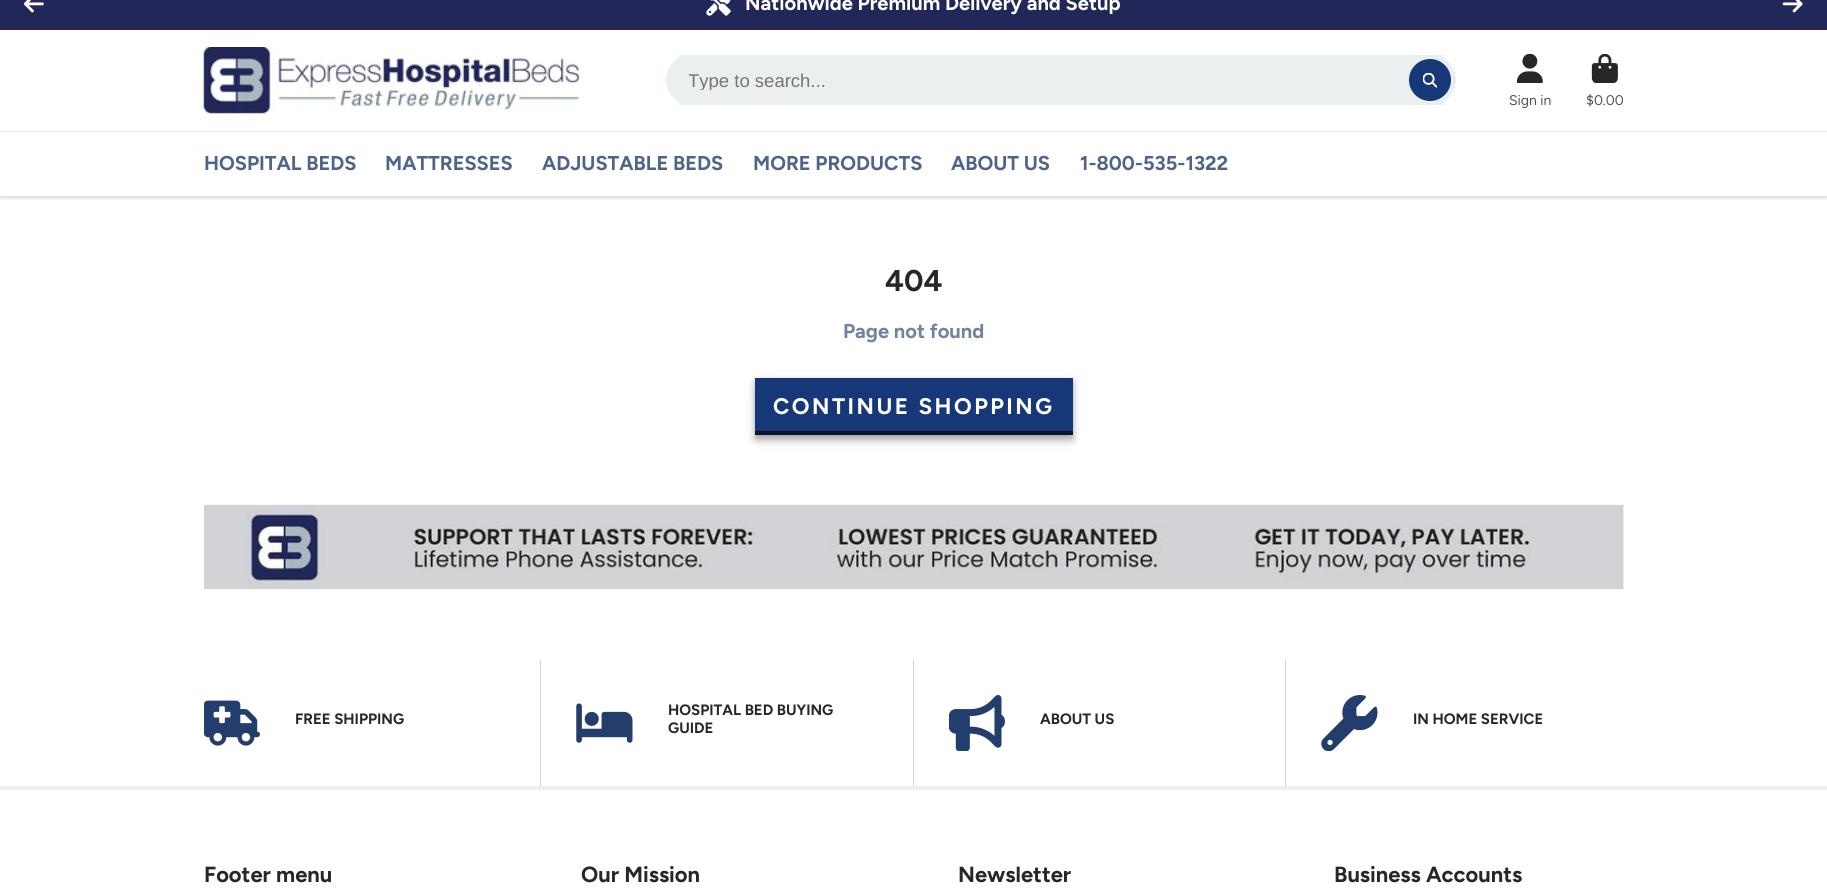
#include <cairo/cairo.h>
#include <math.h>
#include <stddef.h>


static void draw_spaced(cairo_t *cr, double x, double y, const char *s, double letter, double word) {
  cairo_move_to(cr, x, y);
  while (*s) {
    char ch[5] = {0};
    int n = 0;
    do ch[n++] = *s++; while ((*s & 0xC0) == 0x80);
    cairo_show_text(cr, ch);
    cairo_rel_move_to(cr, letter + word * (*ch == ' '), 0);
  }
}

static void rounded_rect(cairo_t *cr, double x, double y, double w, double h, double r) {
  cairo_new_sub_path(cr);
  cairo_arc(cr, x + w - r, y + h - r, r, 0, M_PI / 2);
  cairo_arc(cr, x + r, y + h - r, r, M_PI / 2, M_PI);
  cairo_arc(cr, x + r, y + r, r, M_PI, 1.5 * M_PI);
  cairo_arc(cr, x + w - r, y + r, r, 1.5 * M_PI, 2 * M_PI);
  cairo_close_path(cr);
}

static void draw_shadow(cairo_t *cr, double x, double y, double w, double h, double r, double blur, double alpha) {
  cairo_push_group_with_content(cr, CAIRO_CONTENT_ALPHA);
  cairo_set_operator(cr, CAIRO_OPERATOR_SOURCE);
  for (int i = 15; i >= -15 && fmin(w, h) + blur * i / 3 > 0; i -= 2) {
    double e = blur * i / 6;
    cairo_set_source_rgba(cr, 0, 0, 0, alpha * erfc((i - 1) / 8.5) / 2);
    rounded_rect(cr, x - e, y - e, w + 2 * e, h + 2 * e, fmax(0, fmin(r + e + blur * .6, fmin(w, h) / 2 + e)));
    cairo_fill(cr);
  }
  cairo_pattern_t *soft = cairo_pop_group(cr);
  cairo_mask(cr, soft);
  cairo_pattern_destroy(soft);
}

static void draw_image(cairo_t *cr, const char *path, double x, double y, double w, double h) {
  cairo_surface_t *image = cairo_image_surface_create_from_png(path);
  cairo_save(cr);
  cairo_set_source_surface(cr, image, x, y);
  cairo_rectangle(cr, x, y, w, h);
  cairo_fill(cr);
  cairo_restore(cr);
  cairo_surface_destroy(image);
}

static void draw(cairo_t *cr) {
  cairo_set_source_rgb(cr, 1, 1, 1);
  cairo_paint(cr);
  cairo_set_source_rgb(cr, 33 / 255.0, 39 / 255.0, 89 / 255.0);
  cairo_rectangle(cr, 0, 0, 1827, 30);
  cairo_fill(cr);
  draw_image(cr, "images/1.png", 23, 0, 21, 13);
  draw_image(cr, "images/2.png", 706, 0, 25, 16);
  draw_image(cr, "images/3.png", 1782, 0, 21, 13);
  cairo_save(cr);
  cairo_rectangle(cr, 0, 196, 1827, 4);
  cairo_clip(cr);
  cairo_set_source_rgb(cr, 11 / 255.0, 25 / 255.0, 28 / 255.0);
  draw_shadow(cr, 0, 33, 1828, 166, 0, 1, 0.12);
  cairo_restore(cr);
  draw_image(cr, "images/4.png", 203, 47, 376, 67);
  cairo_set_source_rgb(cr, 236 / 255.0, 239 / 255.0, 239 / 255.0);
  cairo_rectangle(cr, 679, 55, 765, 50);
  cairo_fill(cr);
  rounded_rect(cr, 666, 55, 790, 50, 25);
  cairo_fill(cr);
  cairo_set_source_rgb(cr, 23 / 255.0, 56 / 255.0, 120 / 255.0);
  cairo_arc(cr, 1430, 80, 21, 0, 2 * M_PI);
  cairo_fill(cr);
  draw_image(cr, "images/5.png", 1423, 73, 14, 15);
  draw_image(cr, "images/6.png", 1516, 54, 27, 29);
  draw_image(cr, "images/7.png", 1591, 54, 27, 29);
  cairo_set_source_rgb(cr, 236 / 255.0, 239 / 255.0, 239 / 255.0);
  cairo_rectangle(cr, 0, 131, 1827, 1);
  cairo_fill(cr);
  cairo_set_source_rgb(cr, 0, 0, 0);
  draw_shadow(cr, 759, 388, 310, 51, 0, 7, 0.15);
  draw_shadow(cr, 755, 381, 318, 58, 0, 3.5, 0.3);
  cairo_set_source_rgb(cr, 23 / 255.0, 56 / 255.0, 120 / 255.0);
  cairo_rectangle(cr, 755, 378, 318, 53);
  cairo_fill(cr);
  cairo_set_source_rgb(cr, 8 / 255.0, 20 / 255.0, 43 / 255.0);
  cairo_rectangle(cr, 755, 431, 318, 4);
  cairo_fill(cr);
  draw_image(cr, "images/8.png", 204, 504, 1420, 86);
  draw_image(cr, "images/9.png", 204, 700, 56, 46);
  cairo_set_source_rgb(cr, 212 / 255.0, 212 / 255.0, 212 / 255.0);
  cairo_rectangle(cr, 540, 660, 1, 126);
  cairo_fill(cr);
  draw_image(cr, "images/10.png", 576, 703, 57, 40);
  cairo_rectangle(cr, 913, 660, 1, 126);
  cairo_fill(cr);
  draw_image(cr, "images/11.png", 949, 695, 56, 56);
  cairo_rectangle(cr, 1285, 660, 1, 126);
  cairo_fill(cr);
  draw_image(cr, "images/12.png", 1321, 695, 57, 56);
  cairo_set_source_rgb(cr, 236 / 255.0, 239 / 255.0, 239 / 255.0);
  cairo_rectangle(cr, 0, 786, 1827, 4);
  cairo_fill(cr);
  cairo_select_font_face(cr, "Figtree", CAIRO_FONT_SLANT_NORMAL, CAIRO_FONT_WEIGHT_BOLD);
  cairo_set_font_size(cr, 20.1);
  cairo_set_source_rgb(cr, 1, 1, 1);
  cairo_move_to(cr, 745, 10);
  cairo_show_text(cr, "Nationwide Premium Delivery and Setup");
  cairo_save(cr);
  cairo_rectangle(cr, 689, 70, 745, 20);
  cairo_clip(cr);
  cairo_select_font_face(cr, "Liberation Sans", CAIRO_FONT_SLANT_NORMAL, CAIRO_FONT_WEIGHT_NORMAL);
  cairo_set_font_size(cr, 18.5);
  cairo_set_source_rgb(cr, 117 / 255.0, 117 / 255.0, 117 / 255.0);
  cairo_move_to(cr, 688, 87);
  cairo_show_text(cr, "Type to search...");
  cairo_restore(cr);
  cairo_select_font_face(cr, "Figtree", CAIRO_FONT_SLANT_NORMAL, CAIRO_FONT_WEIGHT_NORMAL);
  cairo_set_font_size(cr, 14);
  cairo_set_source_rgb(cr, 83 / 255.0, 82 / 255.0, 82 / 255.0);
  cairo_move_to(cr, 1509, 105);
  cairo_show_text(cr, "Sign in");
  cairo_move_to(cr, 1586, 105);
  cairo_show_text(cr, "$0.00");
  cairo_select_font_face(cr, "Figtree", CAIRO_FONT_SLANT_NORMAL, CAIRO_FONT_WEIGHT_BOLD);
  cairo_set_font_size(cr, 20);
  cairo_set_source_rgb(cr, 79 / 255.0, 100 / 255.0, 138 / 255.0);
  cairo_move_to(cr, 204, 170);
  cairo_show_text(cr, "HOSPITAL BEDS");
  cairo_move_to(cr, 385, 170);
  cairo_show_text(cr, "MATTRESSES");
  cairo_move_to(cr, 542, 170);
  cairo_show_text(cr, "ADJUSTABLE BEDS");
  cairo_move_to(cr, 753, 170);
  cairo_show_text(cr, "MORE PRODUCTS");
  cairo_move_to(cr, 951, 170);
  cairo_show_text(cr, "ABOUT US");
  cairo_move_to(cr, 1080, 170);
  cairo_show_text(cr, "1-800-535-1322");
  cairo_set_font_size(cr, 30);
  cairo_set_source_rgb(cr, 40 / 255.0, 39 / 255.0, 39 / 255.0);
  cairo_move_to(cr, 885, 291);
  cairo_show_text(cr, "404");
  cairo_set_font_size(cr, 20.1);
  cairo_set_source_rgb(cr, 114 / 255.0, 131 / 255.0, 162 / 255.0);
  cairo_move_to(cr, 843, 338);
  cairo_show_text(cr, "Page not found");
  cairo_set_font_size(cr, 22.5);
  cairo_set_source_rgb(cr, 1, 1, 1);
  draw_spaced(cr, 773, 414, "CONTINUE SHOPPING", 2.5, 0);
  cairo_set_font_size(cr, 15);
  cairo_set_source_rgb(cr, 40 / 255.0, 39 / 255.0, 39 / 255.0);
  cairo_move_to(cr, 295, 724);
  cairo_show_text(cr, "FREE SHIPPING");
  cairo_move_to(cr, 668, 715);
  cairo_show_text(cr, "HOSPITAL BED BUYING");
  cairo_move_to(cr, 668, 733);
  cairo_show_text(cr, "GUIDE");
  cairo_move_to(cr, 1040, 724);
  cairo_show_text(cr, "ABOUT US");
  cairo_move_to(cr, 1413, 724);
  cairo_show_text(cr, "IN HOME SERVICE");
  cairo_set_font_size(cr, 21.9);
  cairo_move_to(cr, 204, 882);
  cairo_show_text(cr, "Footer menu");
  cairo_move_to(cr, 581, 882);
  cairo_show_text(cr, "Our Mission");
  cairo_move_to(cr, 958, 882);
  cairo_show_text(cr, "Newsletter");
  cairo_move_to(cr, 1334, 882);
  cairo_show_text(cr, "Business Accounts");
}

int main(void) {
  cairo_surface_t *surface = cairo_image_surface_create(CAIRO_FORMAT_RGB24, 1827, 895);
  cairo_t *cr = cairo_create(surface);
  cairo_font_options_t *options = cairo_font_options_create();
  cairo_font_options_set_hint_metrics(options, CAIRO_HINT_METRICS_OFF);
  cairo_font_options_set_hint_style(options, CAIRO_HINT_STYLE_NONE);
  cairo_set_font_options(cr, options);
  cairo_set_miter_limit(cr, 4);
  draw(cr);
  cairo_surface_write_to_png(surface, "out.png");
  cairo_font_options_destroy(options);
  cairo_destroy(cr);
  cairo_surface_destroy(surface);
  return 0;
}
